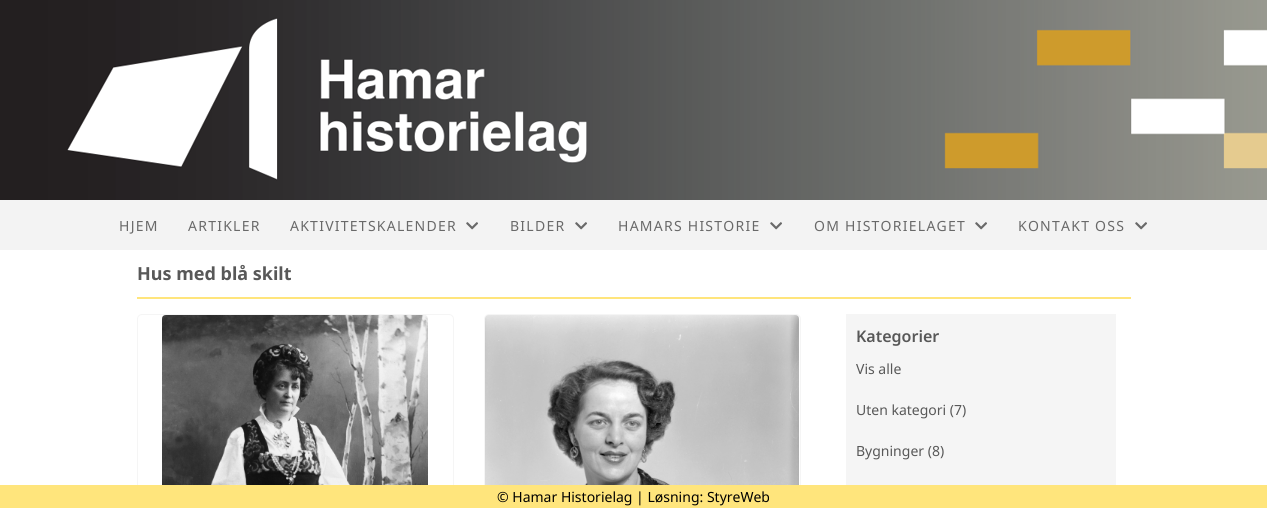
#include <cairo/cairo.h>
#include <math.h>
#include <stddef.h>


static void draw_spaced(cairo_t *cr, double x, double y, const char *s, double letter, double word) {
  cairo_move_to(cr, x, y);
  while (*s) {
    char ch[5] = {0};
    int n = 0;
    do ch[n++] = *s++; while ((*s & 0xC0) == 0x80);
    cairo_show_text(cr, ch);
    cairo_rel_move_to(cr, letter + word * (*ch == ' '), 0);
  }
}

static void rounded_rect(cairo_t *cr, double x, double y, double w, double h, double r) {
  cairo_new_sub_path(cr);
  cairo_arc(cr, x + w - r, y + h - r, r, 0, M_PI / 2);
  cairo_arc(cr, x + r, y + h - r, r, M_PI / 2, M_PI);
  cairo_arc(cr, x + r, y + r, r, M_PI, 1.5 * M_PI);
  cairo_arc(cr, x + w - r, y + r, r, 1.5 * M_PI, 2 * M_PI);
  cairo_close_path(cr);
}

static void draw_image(cairo_t *cr, const char *path, double x, double y, double w, double h) {
  cairo_surface_t *image = cairo_image_surface_create_from_png(path);
  cairo_save(cr);
  cairo_set_source_surface(cr, image, x, y);
  cairo_rectangle(cr, x, y, w, h);
  cairo_fill(cr);
  cairo_restore(cr);
  cairo_surface_destroy(image);
}

static void draw(cairo_t *cr) {
  cairo_set_source_rgb(cr, 1, 1, 1);
  cairo_paint(cr);
  draw_image(cr, "images/1.png", 0, 0, 1267, 200);
  cairo_set_source_rgb(cr, 243 / 255.0, 243 / 255.0, 243 / 255.0);
  cairo_rectangle(cr, 0, 200, 1267, 50);
  cairo_fill(cr);
  draw_image(cr, "images/2.png", 466, 222, 12, 8);
  draw_image(cr, "images/2.png", 575, 222, 12, 8);
  draw_image(cr, "images/2.png", 770, 222, 12, 8);
  draw_image(cr, "images/2.png", 975, 222, 12, 8);
  draw_image(cr, "images/2.png", 1135, 222, 12, 8);
  cairo_set_source_rgb(cr, 1, 229 / 255.0, 124 / 255.0);
  cairo_rectangle(cr, 137, 297, 994, 2);
  cairo_fill(cr);
  rounded_rect(cr, 137.5, 314.5, 316, 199, 4.5);
  cairo_set_source_rgb(cr, 245 / 255.0, 245 / 255.0, 245 / 255.0);
  cairo_set_line_width(cr, 1);
  cairo_stroke(cr);
  draw_image(cr, "images/3.png", 162, 315, 266, 170);
  rounded_rect(cr, 484.5, 314.5, 316, 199, 4.5);
  cairo_stroke(cr);
  draw_image(cr, "images/4.png", 485, 315, 314, 170);
  cairo_rectangle(cr, 846, 314, 270, 171);
  cairo_fill(cr);
  cairo_set_source_rgb(cr, 1, 229 / 255.0, 124 / 255.0);
  cairo_rectangle(cr, 0, 485, 1267, 23);
  cairo_fill(cr);
  cairo_select_font_face(cr, "Noto Sans", CAIRO_FONT_SLANT_NORMAL, CAIRO_FONT_WEIGHT_NORMAL);
  cairo_set_font_size(cr, 14);
  cairo_set_source_rgb(cr, 105 / 255.0, 105 / 255.0, 105 / 255.0);
  draw_spaced(cr, 119, 231, "HJEM", 1.25, 0);
  draw_spaced(cr, 188, 231, "ARTIKLER", 1.25, 0);
  draw_spaced(cr, 290, 231, "AKTIVITETSKALENDER", 1.25, 0);
  draw_spaced(cr, 510, 231, "BILDER", 1.25, 0);
  draw_spaced(cr, 618, 231, "HAMARS HISTORIE", 1.25, 0);
  draw_spaced(cr, 814, 231, "OM HISTORIELAGET", 1.25, 0);
  draw_spaced(cr, 1018, 231, "KONTAKT OSS", 1.25, 0);
  cairo_select_font_face(cr, "Noto Sans", CAIRO_FONT_SLANT_NORMAL, CAIRO_FONT_WEIGHT_BOLD);
  cairo_set_font_size(cr, 18);
  cairo_set_source_rgb(cr, 88 / 255.0, 88 / 255.0, 88 / 255.0);
  cairo_move_to(cr, 137, 280);
  cairo_show_text(cr, "Hus med blå skilt");
  cairo_select_font_face(cr, "Noto Sans SemiBold", CAIRO_FONT_SLANT_NORMAL, CAIRO_FONT_WEIGHT_NORMAL);
  cairo_set_font_size(cr, 16);
  cairo_move_to(cr, 856, 342);
  cairo_show_text(cr, "Kategorier");
  cairo_select_font_face(cr, "Noto Sans", CAIRO_FONT_SLANT_NORMAL, CAIRO_FONT_WEIGHT_NORMAL);
  cairo_set_font_size(cr, 14);
  cairo_move_to(cr, 856, 374);
  cairo_show_text(cr, "Vis alle");
  cairo_move_to(cr, 856, 415);
  cairo_show_text(cr, "Uten kategori (7)");
  cairo_move_to(cr, 856, 456);
  cairo_show_text(cr, "Bygninger (8)");
  cairo_set_source_rgb(cr, 0, 0, 0);
  cairo_move_to(cr, 497, 502);
  cairo_show_text(cr, "© Hamar Historielag | Løsning: StyreWeb");
}

int main(void) {
  cairo_surface_t *surface = cairo_image_surface_create(CAIRO_FORMAT_RGB24, 1267, 508);
  cairo_t *cr = cairo_create(surface);
  cairo_font_options_t *options = cairo_font_options_create();
  cairo_font_options_set_hint_metrics(options, CAIRO_HINT_METRICS_OFF);
  cairo_font_options_set_hint_style(options, CAIRO_HINT_STYLE_NONE);
  cairo_set_font_options(cr, options);
  cairo_set_miter_limit(cr, 4);
  draw(cr);
  cairo_surface_write_to_png(surface, "out.png");
  cairo_font_options_destroy(options);
  cairo_destroy(cr);
  cairo_surface_destroy(surface);
  return 0;
}
